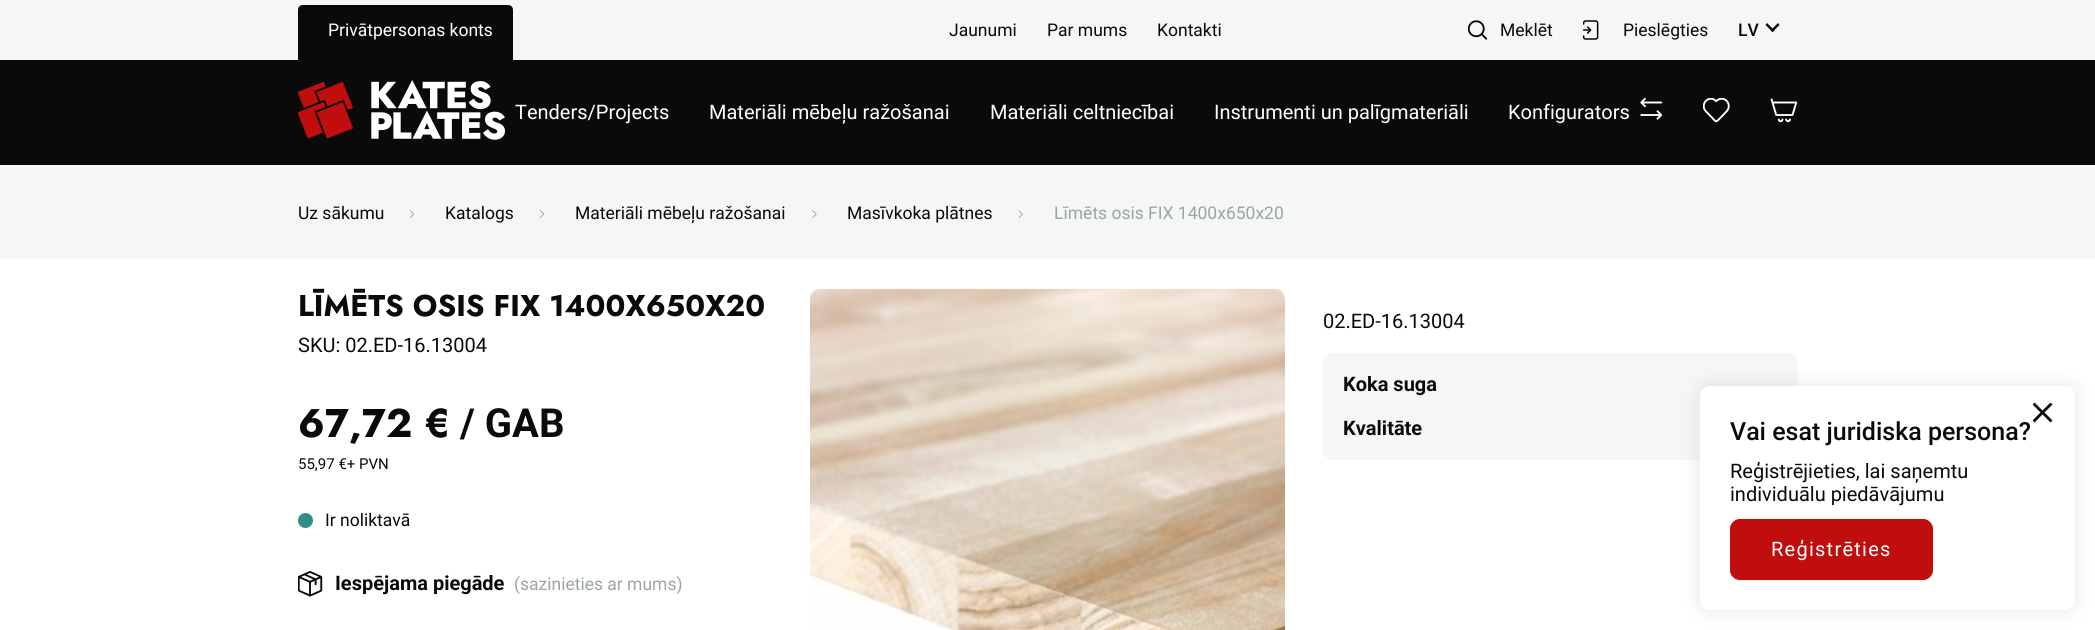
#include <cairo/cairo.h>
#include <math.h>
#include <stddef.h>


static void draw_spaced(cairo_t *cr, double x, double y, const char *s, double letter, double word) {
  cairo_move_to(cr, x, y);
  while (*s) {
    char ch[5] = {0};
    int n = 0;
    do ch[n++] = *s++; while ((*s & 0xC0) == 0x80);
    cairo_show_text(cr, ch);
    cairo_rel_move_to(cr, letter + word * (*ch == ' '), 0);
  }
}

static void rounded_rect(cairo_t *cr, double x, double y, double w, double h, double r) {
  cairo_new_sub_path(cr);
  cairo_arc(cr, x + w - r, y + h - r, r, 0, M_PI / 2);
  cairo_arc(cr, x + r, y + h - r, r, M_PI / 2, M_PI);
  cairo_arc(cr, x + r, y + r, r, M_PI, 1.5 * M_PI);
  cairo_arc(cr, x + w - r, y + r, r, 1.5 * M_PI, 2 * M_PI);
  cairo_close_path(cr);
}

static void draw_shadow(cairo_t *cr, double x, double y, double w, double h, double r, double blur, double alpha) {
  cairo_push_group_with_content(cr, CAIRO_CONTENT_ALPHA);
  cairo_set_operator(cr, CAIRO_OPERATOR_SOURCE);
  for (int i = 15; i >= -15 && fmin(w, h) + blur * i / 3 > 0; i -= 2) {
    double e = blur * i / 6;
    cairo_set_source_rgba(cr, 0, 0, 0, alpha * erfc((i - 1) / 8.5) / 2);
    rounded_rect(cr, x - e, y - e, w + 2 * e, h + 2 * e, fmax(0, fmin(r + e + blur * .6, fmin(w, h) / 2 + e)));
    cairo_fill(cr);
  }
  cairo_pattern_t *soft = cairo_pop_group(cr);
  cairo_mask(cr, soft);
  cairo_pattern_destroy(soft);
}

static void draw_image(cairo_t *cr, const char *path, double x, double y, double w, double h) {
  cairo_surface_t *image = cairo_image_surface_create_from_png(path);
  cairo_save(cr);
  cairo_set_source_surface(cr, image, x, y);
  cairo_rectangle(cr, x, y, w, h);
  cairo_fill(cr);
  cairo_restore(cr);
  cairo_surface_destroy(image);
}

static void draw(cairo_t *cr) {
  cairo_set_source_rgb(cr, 245 / 255.0, 246 / 255.0, 246 / 255.0);
  cairo_paint(cr);
  cairo_set_source_rgb(cr, 10 / 255.0, 10 / 255.0, 10 / 255.0);
  cairo_new_path(cr);
  cairo_move_to(cr, 303, 5);
  cairo_line_to(cr, 508, 5);
  cairo_curve_to(cr, 511, 5, 513, 7, 513, 10);
  cairo_line_to(cr, 513, 60);
  cairo_line_to(cr, 298, 60);
  cairo_line_to(cr, 298, 10);
  cairo_curve_to(cr, 298, 7, 300, 5, 303, 5);
  cairo_close_path(cr);
  cairo_fill(cr);
  draw_image(cr, "images/1.png", 1468, 20, 20, 20);
  draw_image(cr, "images/2.png", 1583, 20, 16, 20);
  cairo_new_path(cr);
  cairo_move_to(cr, 1778, 23);
  cairo_line_to(cr, 1779.5, 25);
  cairo_line_to(cr, 1772.5, 32);
  cairo_line_to(cr, 1770.5, 30.5);
  cairo_close_path(cr);
  cairo_fill(cr);
  cairo_new_path(cr);
  cairo_move_to(cr, 1767, 23);
  cairo_line_to(cr, 1774.5, 30.5);
  cairo_line_to(cr, 1772.5, 32);
  cairo_line_to(cr, 1765.5, 25);
  cairo_close_path(cr);
  cairo_fill(cr);
  cairo_rectangle(cr, 0, 60, 2095, 105);
  cairo_fill(cr);
  draw_image(cr, "images/3.png", 298, 80, 207, 60);
  draw_image(cr, "images/4.png", 1640, 98, 23, 22);
  draw_image(cr, "images/5.png", 1703, 98, 27, 25);
  draw_image(cr, "images/6.png", 1770, 98, 28, 25);
  draw_image(cr, "images/7.png", 409, 210, 5, 8);
  draw_image(cr, "images/7.png", 539, 210, 5, 8);
  draw_image(cr, "images/8.png", 812, 210, 5, 8);
  draw_image(cr, "images/9.png", 1018, 210, 5, 8);
  cairo_set_source_rgb(cr, 1, 1, 1);
  cairo_rectangle(cr, 0, 259, 2095, 371);
  cairo_fill(cr);
  cairo_set_source_rgb(cr, 48 / 255.0, 142 / 255.0, 137 / 255.0);
  cairo_arc(cr, 305.5, 520.5, 7.5, 0, 2 * M_PI);
  cairo_fill(cr);
  draw_image(cr, "images/10.png", 298, 571, 25, 26);
  draw_image(cr, "images/11.png", 810, 288, 475, 342);
  cairo_set_source_rgb(cr, 245 / 255.0, 246 / 255.0, 246 / 255.0);
  rounded_rect(cr, 1323, 353, 475, 107, 10);
  cairo_fill(cr);
  cairo_set_source_rgb(cr, 10 / 255.0, 10 / 255.0, 10 / 255.0);
  draw_shadow(cr, 1700, 386, 375, 224, 10, 10, 0.1);
  cairo_set_source_rgb(cr, 1, 1, 1);
  rounded_rect(cr, 1700, 386, 375, 224, 10);
  cairo_fill(cr);
  draw_image(cr, "images/12.png", 2033, 403, 20, 20);
  cairo_set_source_rgb(cr, 0, 0, 0);
  draw_shadow(cr, 1730, 520, 203, 61, 10, 1, 0.05);
  cairo_set_source_rgb(cr, 192 / 255.0, 13 / 255.0, 13 / 255.0);
  rounded_rect(cr, 1730.5, 519.5, 202, 60, 9.5);
  cairo_fill_preserve(cr);
  cairo_set_line_width(cr, 1);
  cairo_stroke(cr);
  cairo_select_font_face(cr, "Roboto", CAIRO_FONT_SLANT_NORMAL, CAIRO_FONT_WEIGHT_NORMAL);
  cairo_set_font_size(cr, 17.5);
  cairo_set_source_rgb(cr, 1, 1, 1);
  cairo_move_to(cr, 328, 36);
  cairo_show_text(cr, "Privātpersonas konts");
  cairo_set_source_rgb(cr, 10 / 255.0, 10 / 255.0, 10 / 255.0);
  cairo_move_to(cr, 949, 36);
  cairo_show_text(cr, "Jaunumi");
  cairo_move_to(cr, 1047, 36);
  cairo_show_text(cr, "Par mums");
  cairo_move_to(cr, 1157, 36);
  cairo_show_text(cr, "Kontakti");
  cairo_move_to(cr, 1500, 36);
  cairo_show_text(cr, "Meklēt");
  cairo_move_to(cr, 1623, 36);
  cairo_show_text(cr, "Pieslēgties");
  cairo_select_font_face(cr, "Roboto Medium", CAIRO_FONT_SLANT_NORMAL, CAIRO_FONT_WEIGHT_NORMAL);
  cairo_move_to(cr, 1738, 36);
  cairo_show_text(cr, "LV");
  cairo_select_font_face(cr, "Roboto", CAIRO_FONT_SLANT_NORMAL, CAIRO_FONT_WEIGHT_NORMAL);
  cairo_set_font_size(cr, 20);
  cairo_set_source_rgb(cr, 1, 1, 1);
  cairo_move_to(cr, 515, 119);
  cairo_show_text(cr, "Tenders/Projects");
  cairo_move_to(cr, 709, 119);
  cairo_show_text(cr, "Materiāli mēbeļu ražošanai");
  cairo_move_to(cr, 990, 119);
  cairo_show_text(cr, "Materiāli celtniecībai");
  cairo_move_to(cr, 1214, 119);
  cairo_show_text(cr, "Instrumenti un palīgmateriāli");
  cairo_move_to(cr, 1508, 119);
  cairo_show_text(cr, "Konfigurators");
  cairo_set_font_size(cr, 17.5);
  cairo_set_source_rgb(cr, 10 / 255.0, 10 / 255.0, 10 / 255.0);
  cairo_move_to(cr, 298, 219);
  cairo_show_text(cr, "Uz sākumu");
  cairo_move_to(cr, 445, 219);
  cairo_show_text(cr, "Katalogs");
  cairo_move_to(cr, 575, 219);
  cairo_show_text(cr, "Materiāli mēbeļu ražošanai");
  cairo_move_to(cr, 847, 219);
  cairo_show_text(cr, "Masīvkoka plātnes");
  cairo_set_source_rgb(cr, 155 / 255.0, 164 / 255.0, 169 / 255.0);
  cairo_move_to(cr, 1054, 219);
  cairo_show_text(cr, "Līmēts osis FIX 1400x650x20");
  cairo_select_font_face(cr, "Jost", CAIRO_FONT_SLANT_NORMAL, CAIRO_FONT_WEIGHT_BOLD);
  cairo_set_font_size(cr, 30);
  cairo_set_source_rgb(cr, 10 / 255.0, 10 / 255.0, 10 / 255.0);
  cairo_move_to(cr, 298, 316);
  cairo_show_text(cr, "LĪMĒTS OSIS FIX 1400X650X20");
  cairo_select_font_face(cr, "Roboto", CAIRO_FONT_SLANT_NORMAL, CAIRO_FONT_WEIGHT_NORMAL);
  cairo_set_font_size(cr, 20);
  cairo_move_to(cr, 298, 352);
  cairo_show_text(cr, "SKU: 02.ED-16.13004");
  cairo_select_font_face(cr, "Jost", CAIRO_FONT_SLANT_NORMAL, CAIRO_FONT_WEIGHT_BOLD);
  cairo_set_font_size(cr, 40);
  cairo_move_to(cr, 298, 437);
  cairo_show_text(cr, "67,72 €");
  cairo_select_font_face(cr, "Roboto", CAIRO_FONT_SLANT_NORMAL, CAIRO_FONT_WEIGHT_BOLD);
  cairo_move_to(cr, 460, 437);
  cairo_show_text(cr, "/ GAB");
  cairo_select_font_face(cr, "Roboto", CAIRO_FONT_SLANT_NORMAL, CAIRO_FONT_WEIGHT_NORMAL);
  cairo_set_font_size(cr, 15);
  cairo_move_to(cr, 298, 469);
  cairo_show_text(cr, "55,97 €+ PVN");
  cairo_set_font_size(cr, 17.5);
  cairo_move_to(cr, 325, 526);
  cairo_show_text(cr, "Ir noliktavā");
  cairo_select_font_face(cr, "Roboto", CAIRO_FONT_SLANT_NORMAL, CAIRO_FONT_WEIGHT_BOLD);
  cairo_set_font_size(cr, 20);
  cairo_move_to(cr, 335, 590);
  cairo_show_text(cr, "Iespējama piegāde");
  cairo_select_font_face(cr, "Roboto", CAIRO_FONT_SLANT_NORMAL, CAIRO_FONT_WEIGHT_NORMAL);
  cairo_set_font_size(cr, 17.5);
  cairo_set_source_rgb(cr, 155 / 255.0, 164 / 255.0, 169 / 255.0);
  cairo_move_to(cr, 514, 590);
  cairo_show_text(cr, "(sazinieties ar mums)");
  cairo_set_font_size(cr, 20);
  cairo_set_source_rgb(cr, 10 / 255.0, 10 / 255.0, 10 / 255.0);
  cairo_move_to(cr, 1323, 328);
  cairo_show_text(cr, "02.ED-16.13004");
  cairo_select_font_face(cr, "Roboto", CAIRO_FONT_SLANT_NORMAL, CAIRO_FONT_WEIGHT_BOLD);
  cairo_move_to(cr, 1343, 391);
  cairo_show_text(cr, "Koka suga");
  cairo_move_to(cr, 1343, 435);
  cairo_show_text(cr, "Kvalitāte");
  cairo_select_font_face(cr, "Roboto Medium", CAIRO_FONT_SLANT_NORMAL, CAIRO_FONT_WEIGHT_NORMAL);
  cairo_set_font_size(cr, 25);
  cairo_move_to(cr, 1730, 440);
  cairo_show_text(cr, "Vai esat juridiska persona?");
  cairo_select_font_face(cr, "Roboto", CAIRO_FONT_SLANT_NORMAL, CAIRO_FONT_WEIGHT_NORMAL);
  cairo_set_font_size(cr, 20);
  cairo_move_to(cr, 1730, 478);
  cairo_show_text(cr, "Reģistrējieties, lai saņemtu");
  cairo_move_to(cr, 1730, 501);
  cairo_show_text(cr, "individuālu piedāvājumu");
  cairo_set_source_rgb(cr, 1, 1, 1);
  draw_spaced(cr, 1771, 556, "Reģistrēties", 1.25, 0);
}

int main(void) {
  cairo_surface_t *surface = cairo_image_surface_create(CAIRO_FORMAT_RGB24, 2095, 630);
  cairo_t *cr = cairo_create(surface);
  cairo_font_options_t *options = cairo_font_options_create();
  cairo_font_options_set_hint_metrics(options, CAIRO_HINT_METRICS_OFF);
  cairo_font_options_set_hint_style(options, CAIRO_HINT_STYLE_NONE);
  cairo_set_font_options(cr, options);
  cairo_set_miter_limit(cr, 4);
  draw(cr);
  cairo_surface_write_to_png(surface, "out.png");
  cairo_font_options_destroy(options);
  cairo_destroy(cr);
  cairo_surface_destroy(surface);
  return 0;
}
